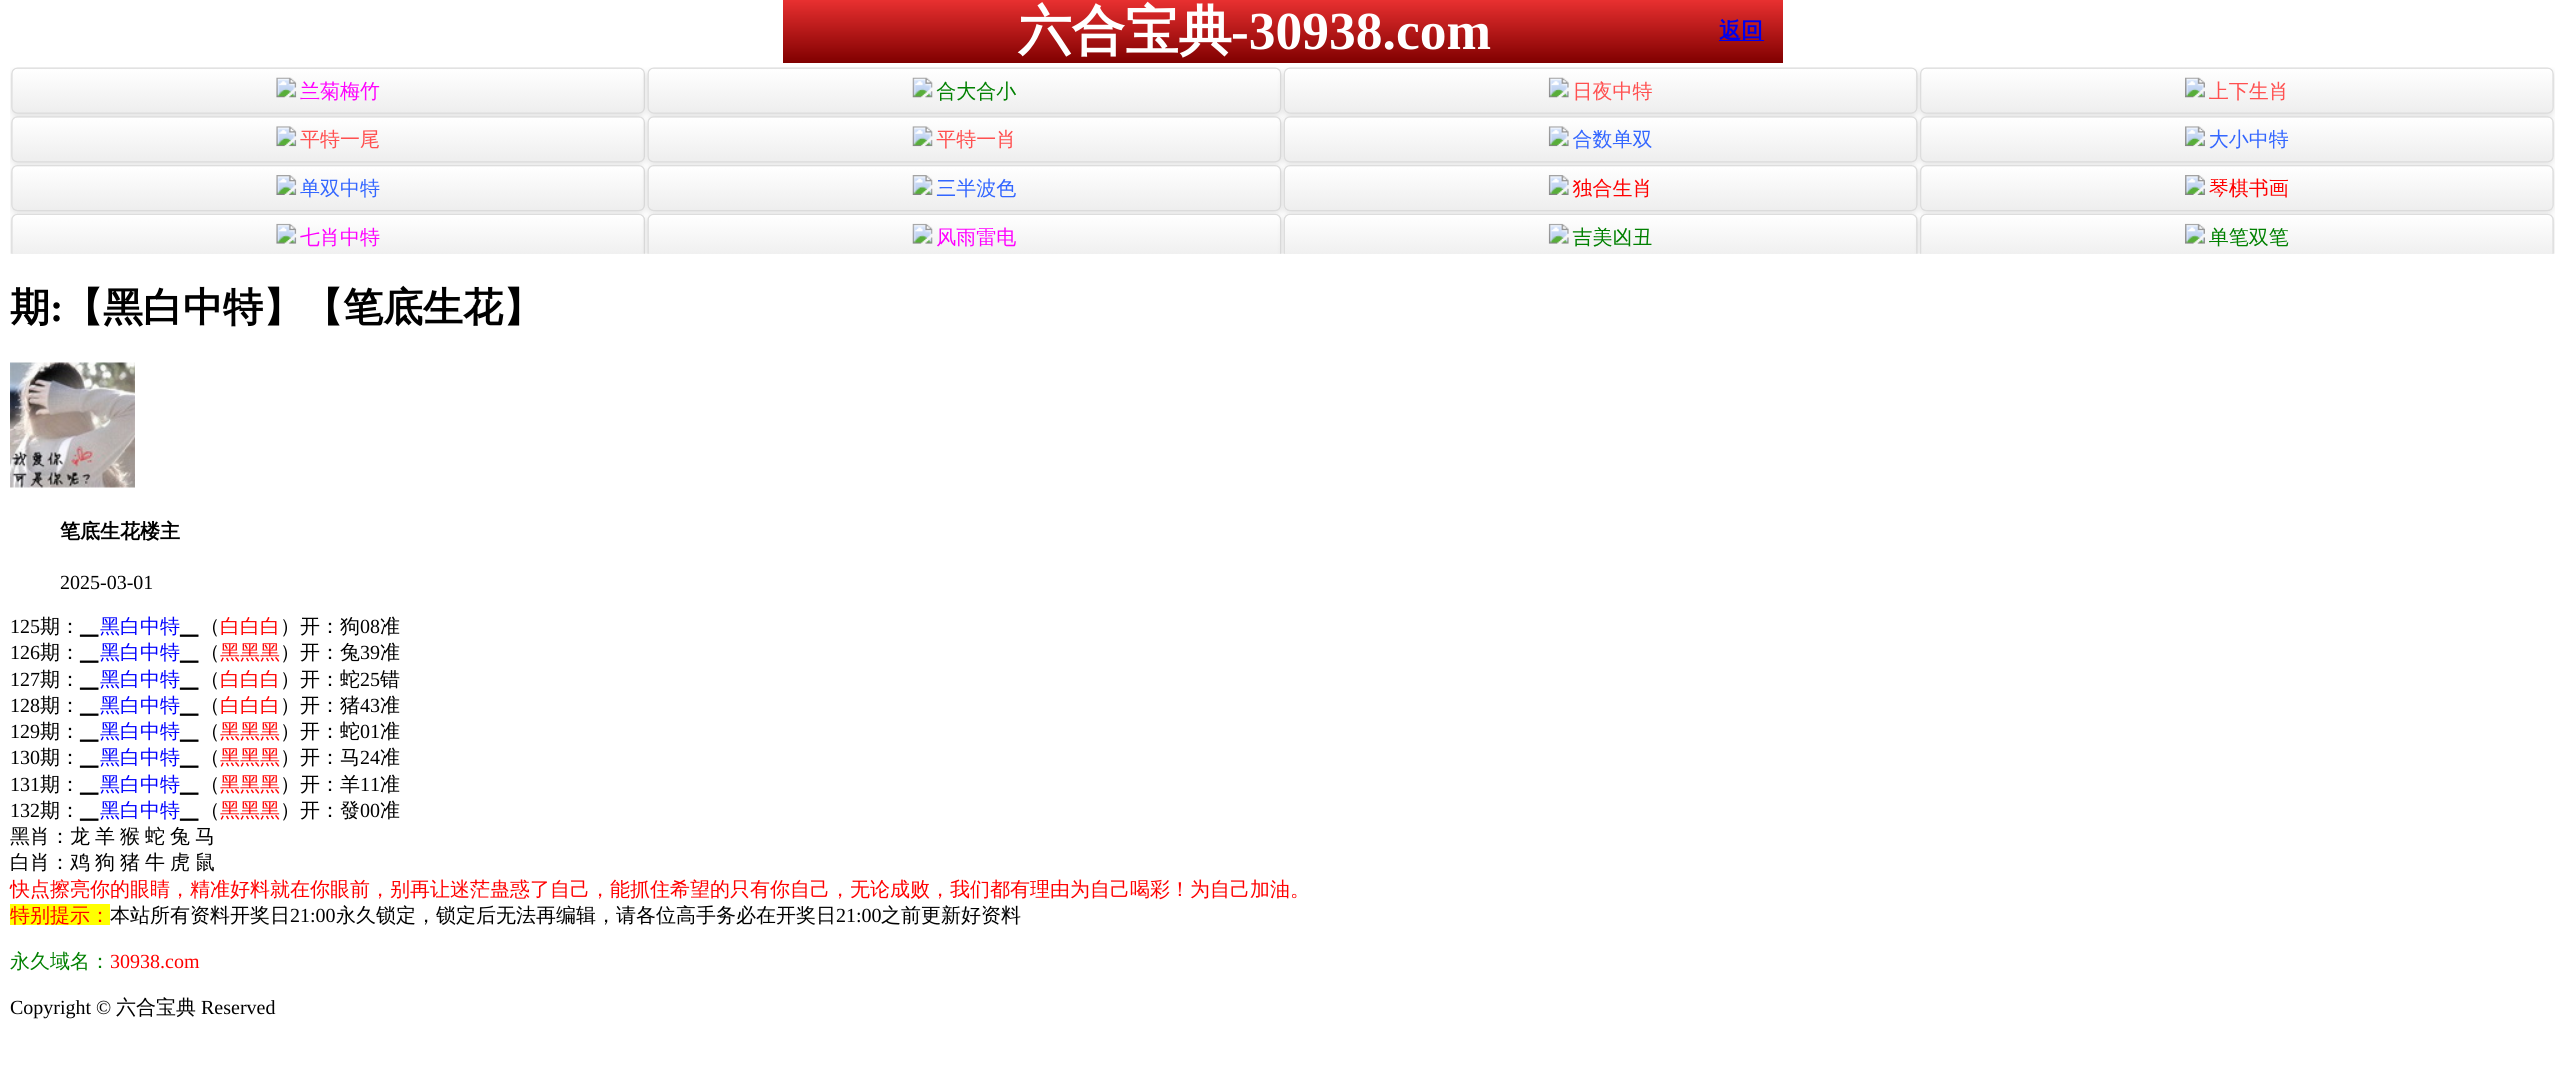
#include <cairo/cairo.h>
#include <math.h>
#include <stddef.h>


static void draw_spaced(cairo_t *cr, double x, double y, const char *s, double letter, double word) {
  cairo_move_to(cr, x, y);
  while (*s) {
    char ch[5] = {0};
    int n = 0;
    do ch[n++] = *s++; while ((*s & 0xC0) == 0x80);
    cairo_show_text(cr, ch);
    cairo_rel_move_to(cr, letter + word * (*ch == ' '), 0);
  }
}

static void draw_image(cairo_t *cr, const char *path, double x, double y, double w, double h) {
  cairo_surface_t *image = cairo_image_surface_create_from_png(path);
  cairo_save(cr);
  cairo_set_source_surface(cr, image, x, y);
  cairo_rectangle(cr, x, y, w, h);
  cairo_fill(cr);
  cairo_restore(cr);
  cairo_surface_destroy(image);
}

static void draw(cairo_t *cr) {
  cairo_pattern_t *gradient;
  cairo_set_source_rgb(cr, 1, 1, 1);
  cairo_paint(cr);
  gradient = cairo_pattern_create_linear(1283, 63, 1283, 0);
  cairo_pattern_add_color_stop_rgba(gradient, 0, 128 / 255.0, 0, 0, 1);
  cairo_pattern_add_color_stop_rgba(gradient, 1, 232 / 255.0, 48 / 255.0, 48 / 255.0, 1);
  cairo_set_source(cr, gradient);
  cairo_pattern_destroy(gradient);
  cairo_rectangle(cr, 783, 0, 1000, 63);
  cairo_fill(cr);
  cairo_set_source_rgb(cr, 0, 0, 238 / 255.0);
  cairo_rectangle(cr, 1719, 40, 45, 1);
  cairo_fill(cr);
  draw_image(cr, "images/1.png", 10, 67, 2545, 187);
  draw_image(cr, "images/2.png", 10, 362, 125, 126);
  cairo_set_source_rgb(cr, 1, 1, 0);
  cairo_rectangle(cr, 10, 904, 100, 21);
  cairo_fill(cr);
  cairo_select_font_face(cr, "WenQuanYi Zen Hei", CAIRO_FONT_SLANT_NORMAL, CAIRO_FONT_WEIGHT_BOLD);
  cairo_set_font_size(cr, 53.5);
  cairo_set_source_rgb(cr, 1, 1, 1);
  cairo_move_to(cr, 1018, 49);
  cairo_show_text(cr, "六合宝典");
  cairo_select_font_face(cr, "Liberation Serif", CAIRO_FONT_SLANT_NORMAL, CAIRO_FONT_WEIGHT_BOLD);
  cairo_move_to(cr, 1231, 49);
  cairo_show_text(cr, "-30938.com");
  cairo_select_font_face(cr, "WenQuanYi Zen Hei", CAIRO_FONT_SLANT_NORMAL, CAIRO_FONT_WEIGHT_BOLD);
  cairo_set_font_size(cr, 22);
  cairo_set_source_rgb(cr, 0, 0, 238 / 255.0);
  cairo_move_to(cr, 1719, 38);
  cairo_show_text(cr, "返回");
  cairo_set_font_size(cr, 40);
  cairo_set_source_rgb(cr, 0, 0, 0);
  cairo_move_to(cr, 10, 321);
  cairo_show_text(cr, "期");
  cairo_select_font_face(cr, "Liberation Serif", CAIRO_FONT_SLANT_NORMAL, CAIRO_FONT_WEIGHT_BOLD);
  cairo_move_to(cr, 50, 321);
  cairo_show_text(cr, ":");
  cairo_select_font_face(cr, "WenQuanYi Zen Hei", CAIRO_FONT_SLANT_NORMAL, CAIRO_FONT_WEIGHT_BOLD);
  cairo_move_to(cr, 63, 321);
  cairo_show_text(cr, "【黑白中特】【笔底生花】");
  cairo_set_font_size(cr, 20);
  cairo_move_to(cr, 60, 538);
  cairo_show_text(cr, "笔底生花楼主");
  cairo_select_font_face(cr, "Liberation Serif", CAIRO_FONT_SLANT_NORMAL, CAIRO_FONT_WEIGHT_NORMAL);
  cairo_move_to(cr, 60, 589);
  cairo_show_text(cr, "2025-03-01");
  cairo_move_to(cr, 10, 633);
  cairo_show_text(cr, "125");
  cairo_select_font_face(cr, "WenQuanYi Zen Hei Medium", CAIRO_FONT_SLANT_NORMAL, CAIRO_FONT_WEIGHT_NORMAL);
  cairo_move_to(cr, 40, 633);
  cairo_show_text(cr, "期：▁");
  cairo_set_source_rgb(cr, 0, 0, 1);
  cairo_move_to(cr, 100, 633);
  cairo_show_text(cr, "黑白中特");
  cairo_set_source_rgb(cr, 0, 0, 0);
  cairo_move_to(cr, 180, 633);
  cairo_show_text(cr, "▁（");
  cairo_set_source_rgb(cr, 1, 0, 0);
  cairo_move_to(cr, 220, 633);
  cairo_show_text(cr, "白白白");
  cairo_set_source_rgb(cr, 0, 0, 0);
  cairo_move_to(cr, 280, 633);
  cairo_show_text(cr, "）开：狗");
  cairo_select_font_face(cr, "Liberation Serif", CAIRO_FONT_SLANT_NORMAL, CAIRO_FONT_WEIGHT_NORMAL);
  cairo_move_to(cr, 360, 633);
  cairo_show_text(cr, "08");
  cairo_select_font_face(cr, "WenQuanYi Zen Hei Medium", CAIRO_FONT_SLANT_NORMAL, CAIRO_FONT_WEIGHT_NORMAL);
  cairo_move_to(cr, 380, 633);
  cairo_show_text(cr, "准");
  cairo_select_font_face(cr, "Liberation Serif", CAIRO_FONT_SLANT_NORMAL, CAIRO_FONT_WEIGHT_NORMAL);
  cairo_move_to(cr, 10, 659);
  cairo_show_text(cr, "126");
  cairo_select_font_face(cr, "WenQuanYi Zen Hei Medium", CAIRO_FONT_SLANT_NORMAL, CAIRO_FONT_WEIGHT_NORMAL);
  cairo_move_to(cr, 40, 659);
  cairo_show_text(cr, "期：▁");
  cairo_set_source_rgb(cr, 0, 0, 1);
  cairo_move_to(cr, 100, 659);
  cairo_show_text(cr, "黑白中特");
  cairo_set_source_rgb(cr, 0, 0, 0);
  cairo_move_to(cr, 180, 659);
  cairo_show_text(cr, "▁（");
  cairo_set_source_rgb(cr, 1, 0, 0);
  cairo_move_to(cr, 220, 659);
  cairo_show_text(cr, "黑黑黑");
  cairo_set_source_rgb(cr, 0, 0, 0);
  cairo_move_to(cr, 280, 659);
  cairo_show_text(cr, "）开：兔");
  cairo_select_font_face(cr, "Liberation Serif", CAIRO_FONT_SLANT_NORMAL, CAIRO_FONT_WEIGHT_NORMAL);
  cairo_move_to(cr, 360, 659);
  cairo_show_text(cr, "39");
  cairo_select_font_face(cr, "WenQuanYi Zen Hei Medium", CAIRO_FONT_SLANT_NORMAL, CAIRO_FONT_WEIGHT_NORMAL);
  cairo_move_to(cr, 380, 659);
  cairo_show_text(cr, "准");
  cairo_select_font_face(cr, "Liberation Serif", CAIRO_FONT_SLANT_NORMAL, CAIRO_FONT_WEIGHT_NORMAL);
  cairo_move_to(cr, 10, 686);
  cairo_show_text(cr, "127");
  cairo_select_font_face(cr, "WenQuanYi Zen Hei Medium", CAIRO_FONT_SLANT_NORMAL, CAIRO_FONT_WEIGHT_NORMAL);
  cairo_move_to(cr, 40, 686);
  cairo_show_text(cr, "期：▁");
  cairo_set_source_rgb(cr, 0, 0, 1);
  cairo_move_to(cr, 100, 686);
  cairo_show_text(cr, "黑白中特");
  cairo_set_source_rgb(cr, 0, 0, 0);
  cairo_move_to(cr, 180, 686);
  cairo_show_text(cr, "▁（");
  cairo_set_source_rgb(cr, 1, 0, 0);
  cairo_move_to(cr, 220, 686);
  cairo_show_text(cr, "白白白");
  cairo_set_source_rgb(cr, 0, 0, 0);
  cairo_move_to(cr, 280, 686);
  cairo_show_text(cr, "）开：蛇");
  cairo_select_font_face(cr, "Liberation Serif", CAIRO_FONT_SLANT_NORMAL, CAIRO_FONT_WEIGHT_NORMAL);
  cairo_move_to(cr, 360, 686);
  cairo_show_text(cr, "25");
  cairo_select_font_face(cr, "WenQuanYi Zen Hei Medium", CAIRO_FONT_SLANT_NORMAL, CAIRO_FONT_WEIGHT_NORMAL);
  cairo_move_to(cr, 380, 686);
  cairo_show_text(cr, "错");
  cairo_select_font_face(cr, "Liberation Serif", CAIRO_FONT_SLANT_NORMAL, CAIRO_FONT_WEIGHT_NORMAL);
  cairo_move_to(cr, 10, 712);
  cairo_show_text(cr, "128");
  cairo_select_font_face(cr, "WenQuanYi Zen Hei Medium", CAIRO_FONT_SLANT_NORMAL, CAIRO_FONT_WEIGHT_NORMAL);
  cairo_move_to(cr, 40, 712);
  cairo_show_text(cr, "期：▁");
  cairo_set_source_rgb(cr, 0, 0, 1);
  cairo_move_to(cr, 100, 712);
  cairo_show_text(cr, "黑白中特");
  cairo_set_source_rgb(cr, 0, 0, 0);
  cairo_move_to(cr, 180, 712);
  cairo_show_text(cr, "▁（");
  cairo_set_source_rgb(cr, 1, 0, 0);
  cairo_move_to(cr, 220, 712);
  cairo_show_text(cr, "白白白");
  cairo_set_source_rgb(cr, 0, 0, 0);
  cairo_move_to(cr, 280, 712);
  cairo_show_text(cr, "）开：猪");
  cairo_select_font_face(cr, "Liberation Serif", CAIRO_FONT_SLANT_NORMAL, CAIRO_FONT_WEIGHT_NORMAL);
  cairo_move_to(cr, 360, 712);
  cairo_show_text(cr, "43");
  cairo_select_font_face(cr, "WenQuanYi Zen Hei Medium", CAIRO_FONT_SLANT_NORMAL, CAIRO_FONT_WEIGHT_NORMAL);
  cairo_move_to(cr, 380, 712);
  cairo_show_text(cr, "准");
  cairo_select_font_face(cr, "Liberation Serif", CAIRO_FONT_SLANT_NORMAL, CAIRO_FONT_WEIGHT_NORMAL);
  cairo_move_to(cr, 10, 738);
  cairo_show_text(cr, "129");
  cairo_select_font_face(cr, "WenQuanYi Zen Hei Medium", CAIRO_FONT_SLANT_NORMAL, CAIRO_FONT_WEIGHT_NORMAL);
  cairo_move_to(cr, 40, 738);
  cairo_show_text(cr, "期：▁");
  cairo_set_source_rgb(cr, 0, 0, 1);
  cairo_move_to(cr, 100, 738);
  cairo_show_text(cr, "黑白中特");
  cairo_set_source_rgb(cr, 0, 0, 0);
  cairo_move_to(cr, 180, 738);
  cairo_show_text(cr, "▁（");
  cairo_set_source_rgb(cr, 1, 0, 0);
  cairo_move_to(cr, 220, 738);
  cairo_show_text(cr, "黑黑黑");
  cairo_set_source_rgb(cr, 0, 0, 0);
  cairo_move_to(cr, 280, 738);
  cairo_show_text(cr, "）开：蛇");
  cairo_select_font_face(cr, "Liberation Serif", CAIRO_FONT_SLANT_NORMAL, CAIRO_FONT_WEIGHT_NORMAL);
  cairo_move_to(cr, 360, 738);
  cairo_show_text(cr, "01");
  cairo_select_font_face(cr, "WenQuanYi Zen Hei Medium", CAIRO_FONT_SLANT_NORMAL, CAIRO_FONT_WEIGHT_NORMAL);
  cairo_move_to(cr, 380, 738);
  cairo_show_text(cr, "准");
  cairo_select_font_face(cr, "Liberation Serif", CAIRO_FONT_SLANT_NORMAL, CAIRO_FONT_WEIGHT_NORMAL);
  cairo_move_to(cr, 10, 764);
  cairo_show_text(cr, "130");
  cairo_select_font_face(cr, "WenQuanYi Zen Hei Medium", CAIRO_FONT_SLANT_NORMAL, CAIRO_FONT_WEIGHT_NORMAL);
  cairo_move_to(cr, 40, 764);
  cairo_show_text(cr, "期：▁");
  cairo_set_source_rgb(cr, 0, 0, 1);
  cairo_move_to(cr, 100, 764);
  cairo_show_text(cr, "黑白中特");
  cairo_set_source_rgb(cr, 0, 0, 0);
  cairo_move_to(cr, 180, 764);
  cairo_show_text(cr, "▁（");
  cairo_set_source_rgb(cr, 1, 0, 0);
  cairo_move_to(cr, 220, 764);
  cairo_show_text(cr, "黑黑黑");
  cairo_set_source_rgb(cr, 0, 0, 0);
  cairo_move_to(cr, 280, 764);
  cairo_show_text(cr, "）开：马");
  cairo_select_font_face(cr, "Liberation Serif", CAIRO_FONT_SLANT_NORMAL, CAIRO_FONT_WEIGHT_NORMAL);
  cairo_move_to(cr, 360, 764);
  cairo_show_text(cr, "24");
  cairo_select_font_face(cr, "WenQuanYi Zen Hei Medium", CAIRO_FONT_SLANT_NORMAL, CAIRO_FONT_WEIGHT_NORMAL);
  cairo_move_to(cr, 380, 764);
  cairo_show_text(cr, "准");
  cairo_select_font_face(cr, "Liberation Serif", CAIRO_FONT_SLANT_NORMAL, CAIRO_FONT_WEIGHT_NORMAL);
  cairo_move_to(cr, 10, 791);
  cairo_show_text(cr, "131");
  cairo_select_font_face(cr, "WenQuanYi Zen Hei Medium", CAIRO_FONT_SLANT_NORMAL, CAIRO_FONT_WEIGHT_NORMAL);
  cairo_move_to(cr, 40, 791);
  cairo_show_text(cr, "期：▁");
  cairo_set_source_rgb(cr, 0, 0, 1);
  cairo_move_to(cr, 100, 791);
  cairo_show_text(cr, "黑白中特");
  cairo_set_source_rgb(cr, 0, 0, 0);
  cairo_move_to(cr, 180, 791);
  cairo_show_text(cr, "▁（");
  cairo_set_source_rgb(cr, 1, 0, 0);
  cairo_move_to(cr, 220, 791);
  cairo_show_text(cr, "黑黑黑");
  cairo_set_source_rgb(cr, 0, 0, 0);
  cairo_move_to(cr, 280, 791);
  cairo_show_text(cr, "）开：羊");
  cairo_select_font_face(cr, "Liberation Serif", CAIRO_FONT_SLANT_NORMAL, CAIRO_FONT_WEIGHT_NORMAL);
  cairo_move_to(cr, 360, 791);
  cairo_show_text(cr, "11");
  cairo_select_font_face(cr, "WenQuanYi Zen Hei Medium", CAIRO_FONT_SLANT_NORMAL, CAIRO_FONT_WEIGHT_NORMAL);
  cairo_move_to(cr, 380, 791);
  cairo_show_text(cr, "准");
  cairo_select_font_face(cr, "Liberation Serif", CAIRO_FONT_SLANT_NORMAL, CAIRO_FONT_WEIGHT_NORMAL);
  cairo_move_to(cr, 10, 817);
  cairo_show_text(cr, "132");
  cairo_select_font_face(cr, "WenQuanYi Zen Hei Medium", CAIRO_FONT_SLANT_NORMAL, CAIRO_FONT_WEIGHT_NORMAL);
  cairo_move_to(cr, 40, 817);
  cairo_show_text(cr, "期：▁");
  cairo_set_source_rgb(cr, 0, 0, 1);
  cairo_move_to(cr, 100, 817);
  cairo_show_text(cr, "黑白中特");
  cairo_set_source_rgb(cr, 0, 0, 0);
  cairo_move_to(cr, 180, 817);
  cairo_show_text(cr, "▁（");
  cairo_set_source_rgb(cr, 1, 0, 0);
  cairo_move_to(cr, 220, 817);
  cairo_show_text(cr, "黑黑黑");
  cairo_set_source_rgb(cr, 0, 0, 0);
  cairo_move_to(cr, 280, 817);
  cairo_show_text(cr, "）开：發");
  cairo_select_font_face(cr, "Liberation Serif", CAIRO_FONT_SLANT_NORMAL, CAIRO_FONT_WEIGHT_NORMAL);
  cairo_move_to(cr, 360, 817);
  cairo_show_text(cr, "00");
  cairo_select_font_face(cr, "WenQuanYi Zen Hei Medium", CAIRO_FONT_SLANT_NORMAL, CAIRO_FONT_WEIGHT_NORMAL);
  cairo_move_to(cr, 380, 817);
  cairo_show_text(cr, "准");
  draw_spaced(cr, 10, 843, "黑肖：龙 羊 猴 蛇 兔 马", 0, -1);
  draw_spaced(cr, 10, 869, "白肖：鸡 狗 猪 牛 虎 鼠", 0, -1);
  cairo_set_source_rgb(cr, 1, 0, 0);
  cairo_move_to(cr, 10, 896);
  cairo_show_text(cr, "快点擦亮你的眼睛，精准好料就在你眼前，别再让迷茫蛊惑了自己，能抓住希望的只有你自己，无论成败，我们都有理由为自己喝彩！为自己加油。");
  cairo_move_to(cr, 10, 922);
  cairo_show_text(cr, "特别提示：");
  cairo_set_source_rgb(cr, 0, 0, 0);
  cairo_move_to(cr, 110, 922);
  cairo_show_text(cr, "本站所有资料开奖日");
  cairo_select_font_face(cr, "Liberation Serif", CAIRO_FONT_SLANT_NORMAL, CAIRO_FONT_WEIGHT_NORMAL);
  cairo_move_to(cr, 290, 922);
  cairo_show_text(cr, "21:00");
  cairo_select_font_face(cr, "WenQuanYi Zen Hei Medium", CAIRO_FONT_SLANT_NORMAL, CAIRO_FONT_WEIGHT_NORMAL);
  cairo_move_to(cr, 336, 922);
  cairo_show_text(cr, "永久锁定，锁定后无法再编辑，请各位高手务必在开奖日");
  cairo_select_font_face(cr, "Liberation Serif", CAIRO_FONT_SLANT_NORMAL, CAIRO_FONT_WEIGHT_NORMAL);
  cairo_move_to(cr, 836, 922);
  cairo_show_text(cr, "21:00");
  cairo_select_font_face(cr, "WenQuanYi Zen Hei Medium", CAIRO_FONT_SLANT_NORMAL, CAIRO_FONT_WEIGHT_NORMAL);
  cairo_move_to(cr, 881, 922);
  cairo_show_text(cr, "之前更新好资料");
  cairo_set_source_rgb(cr, 0, 128 / 255.0, 0);
  cairo_move_to(cr, 10, 968);
  cairo_show_text(cr, "永久域名：");
  cairo_select_font_face(cr, "Liberation Serif", CAIRO_FONT_SLANT_NORMAL, CAIRO_FONT_WEIGHT_NORMAL);
  cairo_set_source_rgb(cr, 1, 0, 0);
  cairo_move_to(cr, 110, 968);
  cairo_show_text(cr, "30938.com");
  cairo_set_source_rgb(cr, 0, 0, 0);
  cairo_move_to(cr, 10, 1014);
  cairo_show_text(cr, "Copyright ©");
  cairo_select_font_face(cr, "WenQuanYi Zen Hei Medium", CAIRO_FONT_SLANT_NORMAL, CAIRO_FONT_WEIGHT_NORMAL);
  cairo_move_to(cr, 116, 1014);
  cairo_show_text(cr, "六合宝典");
  cairo_select_font_face(cr, "Liberation Serif", CAIRO_FONT_SLANT_NORMAL, CAIRO_FONT_WEIGHT_NORMAL);
  cairo_move_to(cr, 201, 1014);
  cairo_show_text(cr, "Reserved");
}

int main(void) {
  cairo_surface_t *surface = cairo_image_surface_create(CAIRO_FORMAT_RGB24, 2564, 1074);
  cairo_t *cr = cairo_create(surface);
  cairo_font_options_t *options = cairo_font_options_create();
  cairo_font_options_set_hint_metrics(options, CAIRO_HINT_METRICS_OFF);
  cairo_font_options_set_hint_style(options, CAIRO_HINT_STYLE_NONE);
  cairo_set_font_options(cr, options);
  cairo_set_miter_limit(cr, 4);
  draw(cr);
  cairo_surface_write_to_png(surface, "out.png");
  cairo_font_options_destroy(options);
  cairo_destroy(cr);
  cairo_surface_destroy(surface);
  return 0;
}
